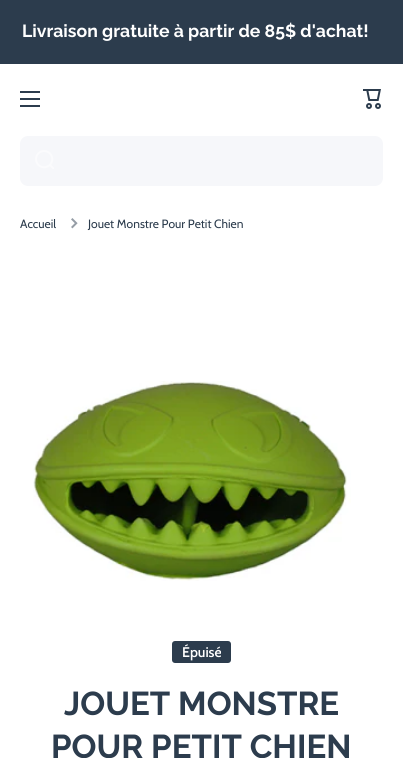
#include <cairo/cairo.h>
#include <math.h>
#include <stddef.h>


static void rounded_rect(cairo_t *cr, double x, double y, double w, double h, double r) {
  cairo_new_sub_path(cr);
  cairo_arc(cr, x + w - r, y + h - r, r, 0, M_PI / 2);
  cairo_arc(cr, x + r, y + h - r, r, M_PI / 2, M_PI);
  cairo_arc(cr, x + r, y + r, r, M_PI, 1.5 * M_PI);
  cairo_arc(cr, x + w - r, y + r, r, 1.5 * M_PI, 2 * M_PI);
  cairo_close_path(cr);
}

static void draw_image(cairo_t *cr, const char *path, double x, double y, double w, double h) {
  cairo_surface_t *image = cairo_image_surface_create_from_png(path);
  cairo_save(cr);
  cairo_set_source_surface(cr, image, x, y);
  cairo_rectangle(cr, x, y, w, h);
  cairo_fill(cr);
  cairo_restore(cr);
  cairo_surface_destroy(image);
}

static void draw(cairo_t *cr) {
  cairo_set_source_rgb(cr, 1, 1, 1);
  cairo_paint(cr);
  cairo_set_source_rgb(cr, 44 / 255.0, 60 / 255.0, 77 / 255.0);
  cairo_rectangle(cr, 0, 0, 403, 64);
  cairo_fill(cr);
  cairo_rectangle(cr, 20, 91, 20, 2);
  cairo_fill(cr);
  cairo_rectangle(cr, 20, 98, 20, 2);
  cairo_fill(cr);
  cairo_rectangle(cr, 20, 105, 20, 2);
  cairo_fill(cr);
  draw_image(cr, "images/1.png", 363, 89, 18, 20);
  cairo_set_source_rgb(cr, 246 / 255.0, 247 / 255.0, 250 / 255.0);
  rounded_rect(cr, 20, 136, 363, 50, 8);
  cairo_fill(cr);
  draw_image(cr, "images/2.png", 35, 150, 19, 19);
  draw_image(cr, "images/3.png", 71, 218, 7, 11);
  draw_image(cr, "images/4.png", 33, 381, 318, 200);
  cairo_set_source_rgb(cr, 44 / 255.0, 60 / 255.0, 77 / 255.0);
  rounded_rect(cr, 172, 641, 59, 22, 3);
  cairo_fill(cr);
  cairo_select_font_face(cr, "Raleway", CAIRO_FONT_SLANT_NORMAL, CAIRO_FONT_WEIGHT_BOLD);
  cairo_set_font_size(cr, 17.6);
  cairo_set_source_rgb(cr, 1, 1, 1);
  cairo_move_to(cr, 22, 37);
  cairo_show_text(cr, "Livraison gratuite à partir de 85$ d'achat!");
  cairo_select_font_face(cr, "Cabin", CAIRO_FONT_SLANT_NORMAL, CAIRO_FONT_WEIGHT_NORMAL);
  cairo_set_font_size(cr, 12);
  cairo_set_source_rgb(cr, 44 / 255.0, 60 / 255.0, 77 / 255.0);
  cairo_move_to(cr, 20, 228);
  cairo_show_text(cr, "Accueil");
  cairo_move_to(cr, 88, 228);
  cairo_show_text(cr, "Jouet Monstre Pour Petit Chien");
  cairo_select_font_face(cr, "Cabin SemiBold", CAIRO_FONT_SLANT_NORMAL, CAIRO_FONT_WEIGHT_NORMAL);
  cairo_set_font_size(cr, 14);
  cairo_set_source_rgb(cr, 1, 1, 1);
  cairo_move_to(cr, 182, 657);
  cairo_show_text(cr, "Épuisé");
  cairo_select_font_face(cr, "Raleway", CAIRO_FONT_SLANT_NORMAL, CAIRO_FONT_WEIGHT_BOLD);
  cairo_set_font_size(cr, 33);
  cairo_set_source_rgb(cr, 44 / 255.0, 60 / 255.0, 77 / 255.0);
  cairo_move_to(cr, 64, 715);
  cairo_show_text(cr, "JOUET MONSTRE");
  cairo_move_to(cr, 51, 758);
  cairo_show_text(cr, "POUR PETIT CHIEN");
}

int main(void) {
  cairo_surface_t *surface = cairo_image_surface_create(CAIRO_FORMAT_RGB24, 403, 758);
  cairo_t *cr = cairo_create(surface);
  cairo_font_options_t *options = cairo_font_options_create();
  cairo_font_options_set_hint_metrics(options, CAIRO_HINT_METRICS_OFF);
  cairo_font_options_set_hint_style(options, CAIRO_HINT_STYLE_NONE);
  cairo_set_font_options(cr, options);
  cairo_set_miter_limit(cr, 4);
  draw(cr);
  cairo_surface_write_to_png(surface, "out.png");
  cairo_font_options_destroy(options);
  cairo_destroy(cr);
  cairo_surface_destroy(surface);
  return 0;
}
